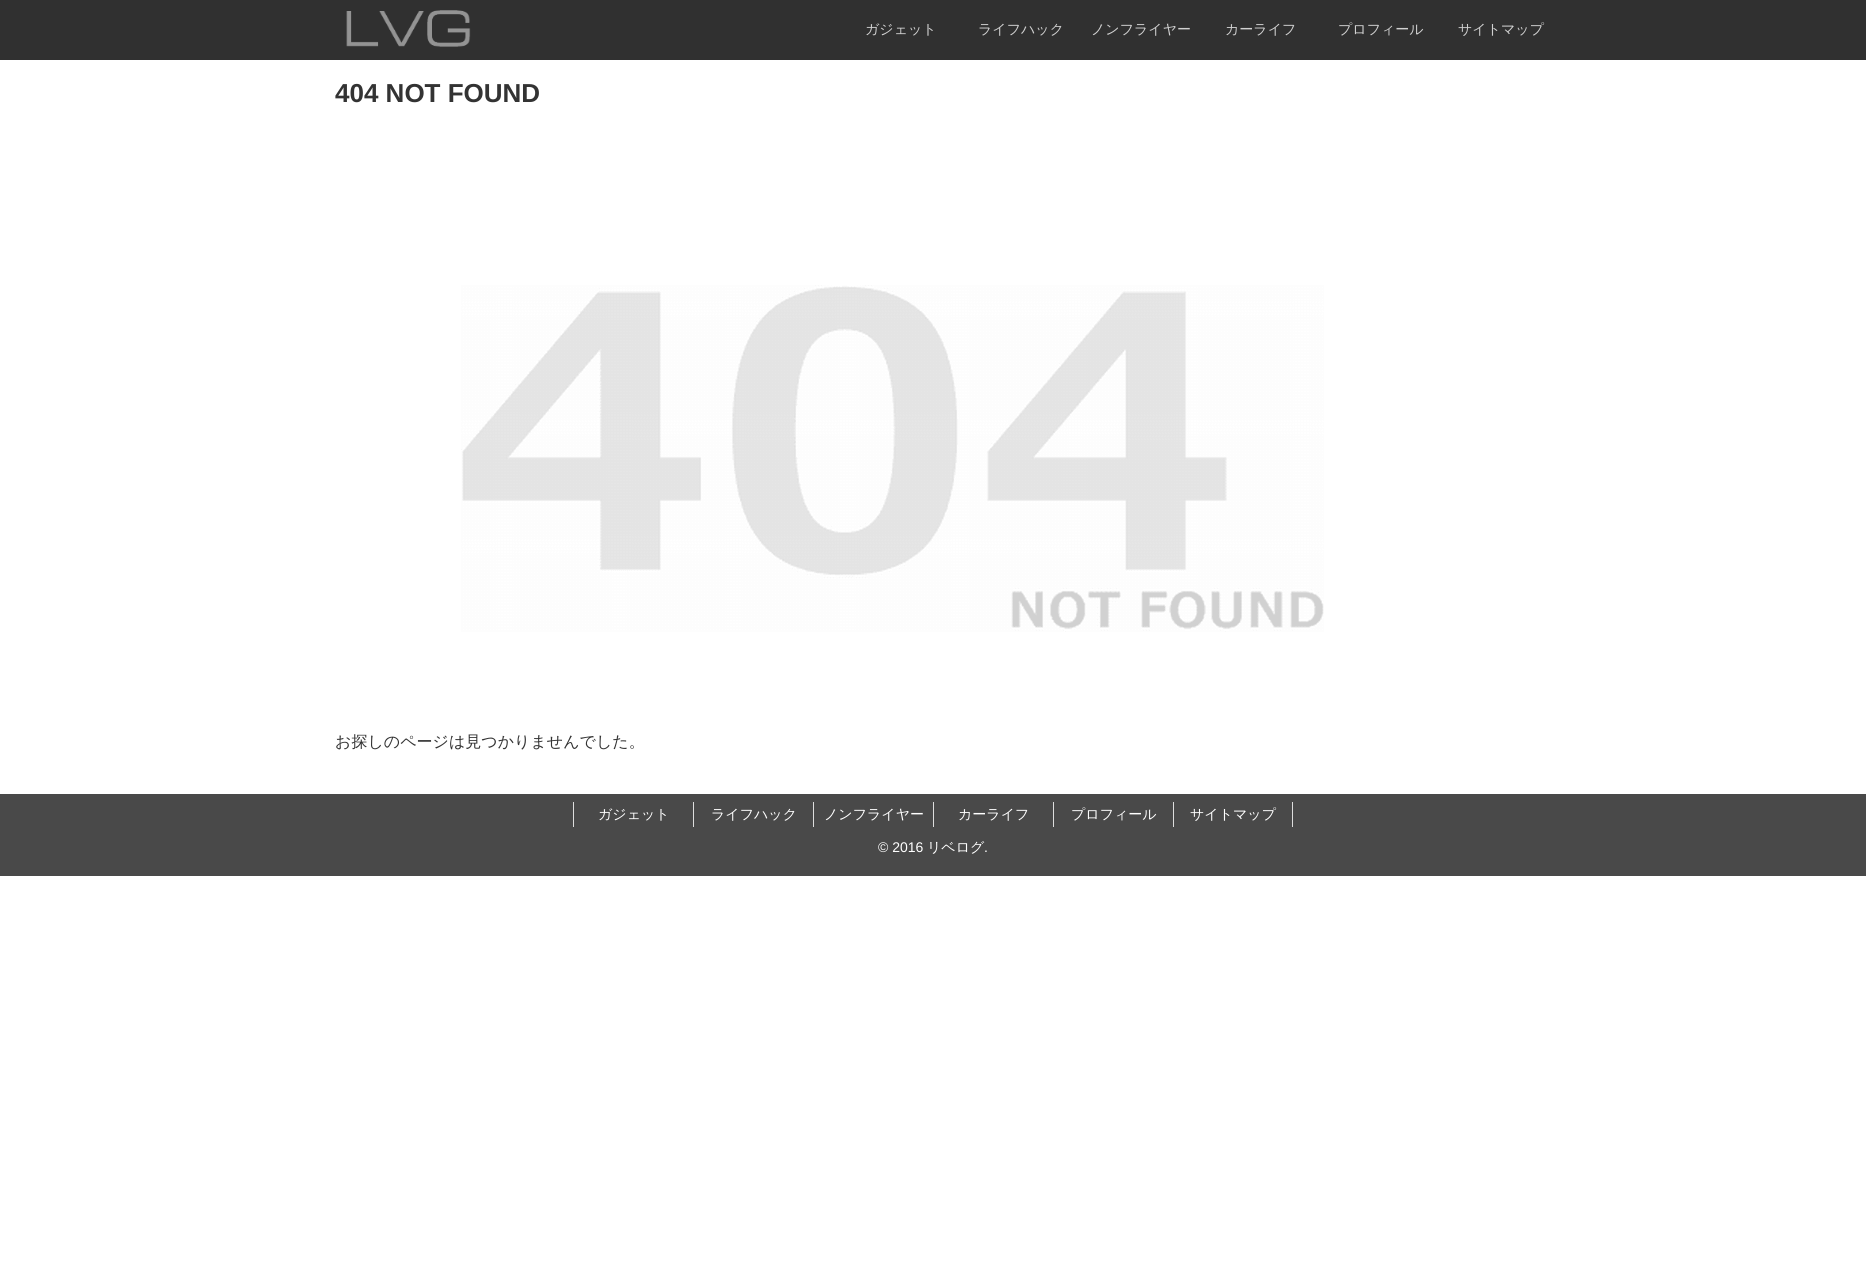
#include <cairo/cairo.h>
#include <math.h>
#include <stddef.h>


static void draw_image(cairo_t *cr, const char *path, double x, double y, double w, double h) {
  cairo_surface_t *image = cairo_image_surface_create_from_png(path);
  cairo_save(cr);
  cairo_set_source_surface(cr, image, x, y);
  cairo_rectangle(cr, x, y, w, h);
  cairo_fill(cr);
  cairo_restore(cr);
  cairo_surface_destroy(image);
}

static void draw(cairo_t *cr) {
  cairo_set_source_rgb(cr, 1, 1, 1);
  cairo_paint(cr);
  cairo_set_source_rgb(cr, 48 / 255.0, 48 / 255.0, 48 / 255.0);
  cairo_rectangle(cr, 0, 0, 1866, 60);
  cairo_fill(cr);
  draw_image(cr, "images/1.png", 346, 10, 125, 37);
  draw_image(cr, "images/2.png", 461, 285, 863, 347);
  cairo_set_source_rgb(cr, 73 / 255.0, 73 / 255.0, 73 / 255.0);
  cairo_rectangle(cr, 0, 794, 1866, 82);
  cairo_fill(cr);
  cairo_set_source_rgb(cr, 221 / 255.0, 221 / 255.0, 221 / 255.0);
  cairo_rectangle(cr, 573, 802, 1, 25);
  cairo_fill(cr);
  cairo_rectangle(cr, 693, 802, 1, 25);
  cairo_fill(cr);
  cairo_rectangle(cr, 813, 802, 1, 25);
  cairo_fill(cr);
  cairo_rectangle(cr, 933, 802, 1, 25);
  cairo_fill(cr);
  cairo_rectangle(cr, 1053, 802, 1, 25);
  cairo_fill(cr);
  cairo_rectangle(cr, 1292, 802, 1, 25);
  cairo_fill(cr);
  cairo_rectangle(cr, 1173, 802, 1, 25);
  cairo_fill(cr);
  cairo_select_font_face(cr, "WenQuanYi Zen Hei Medium", CAIRO_FONT_SLANT_NORMAL, CAIRO_FONT_WEIGHT_NORMAL);
  cairo_set_font_size(cr, 14);
  cairo_set_source_rgb(cr, 209 / 255.0, 209 / 255.0, 209 / 255.0);
  cairo_move_to(cr, 865, 34);
  cairo_show_text(cr, "ガジェット");
  cairo_move_to(cr, 978, 34);
  cairo_show_text(cr, "ライフハック");
  cairo_move_to(cr, 1091, 34);
  cairo_show_text(cr, "ノンフライヤー");
  cairo_move_to(cr, 1225, 34);
  cairo_show_text(cr, "カーライフ");
  cairo_move_to(cr, 1338, 34);
  cairo_show_text(cr, "プロフィール");
  cairo_move_to(cr, 1458, 34);
  cairo_show_text(cr, "サイトマップ");
  cairo_select_font_face(cr, "Liberation Sans", CAIRO_FONT_SLANT_NORMAL, CAIRO_FONT_WEIGHT_BOLD);
  cairo_set_font_size(cr, 26);
  cairo_set_source_rgb(cr, 51 / 255.0, 51 / 255.0, 51 / 255.0);
  cairo_move_to(cr, 335, 102);
  cairo_show_text(cr, "404 NOT FOUND");
  cairo_select_font_face(cr, "WenQuanYi Zen Hei Medium", CAIRO_FONT_SLANT_NORMAL, CAIRO_FONT_WEIGHT_NORMAL);
  cairo_set_font_size(cr, 16);
  cairo_move_to(cr, 335, 747);
  cairo_show_text(cr, "お探しのページは見つかりませんでした。");
  cairo_set_font_size(cr, 14);
  cairo_set_source_rgb(cr, 1, 1, 1);
  cairo_move_to(cr, 598, 819);
  cairo_show_text(cr, "ガジェット");
  cairo_move_to(cr, 711, 819);
  cairo_show_text(cr, "ライフハック");
  cairo_move_to(cr, 824, 819);
  cairo_show_text(cr, "ノンフライヤー");
  cairo_move_to(cr, 958, 819);
  cairo_show_text(cr, "カーライフ");
  cairo_move_to(cr, 1071, 819);
  cairo_show_text(cr, "プロフィール");
  cairo_move_to(cr, 1190, 819);
  cairo_show_text(cr, "サイトマップ");
  cairo_select_font_face(cr, "Liberation Sans", CAIRO_FONT_SLANT_NORMAL, CAIRO_FONT_WEIGHT_NORMAL);
  cairo_move_to(cr, 878, 852);
  cairo_show_text(cr, "© 2016");
  cairo_select_font_face(cr, "WenQuanYi Zen Hei Medium", CAIRO_FONT_SLANT_NORMAL, CAIRO_FONT_WEIGHT_NORMAL);
  cairo_move_to(cr, 927, 852);
  cairo_show_text(cr, "リベログ");
  cairo_select_font_face(cr, "Liberation Sans", CAIRO_FONT_SLANT_NORMAL, CAIRO_FONT_WEIGHT_NORMAL);
  cairo_move_to(cr, 984, 852);
  cairo_show_text(cr, ".");
}

int main(void) {
  cairo_surface_t *surface = cairo_image_surface_create(CAIRO_FORMAT_RGB24, 1866, 1278);
  cairo_t *cr = cairo_create(surface);
  cairo_font_options_t *options = cairo_font_options_create();
  cairo_font_options_set_hint_metrics(options, CAIRO_HINT_METRICS_OFF);
  cairo_font_options_set_hint_style(options, CAIRO_HINT_STYLE_NONE);
  cairo_set_font_options(cr, options);
  cairo_set_miter_limit(cr, 4);
  draw(cr);
  cairo_surface_write_to_png(surface, "out.png");
  cairo_font_options_destroy(options);
  cairo_destroy(cr);
  cairo_surface_destroy(surface);
  return 0;
}
